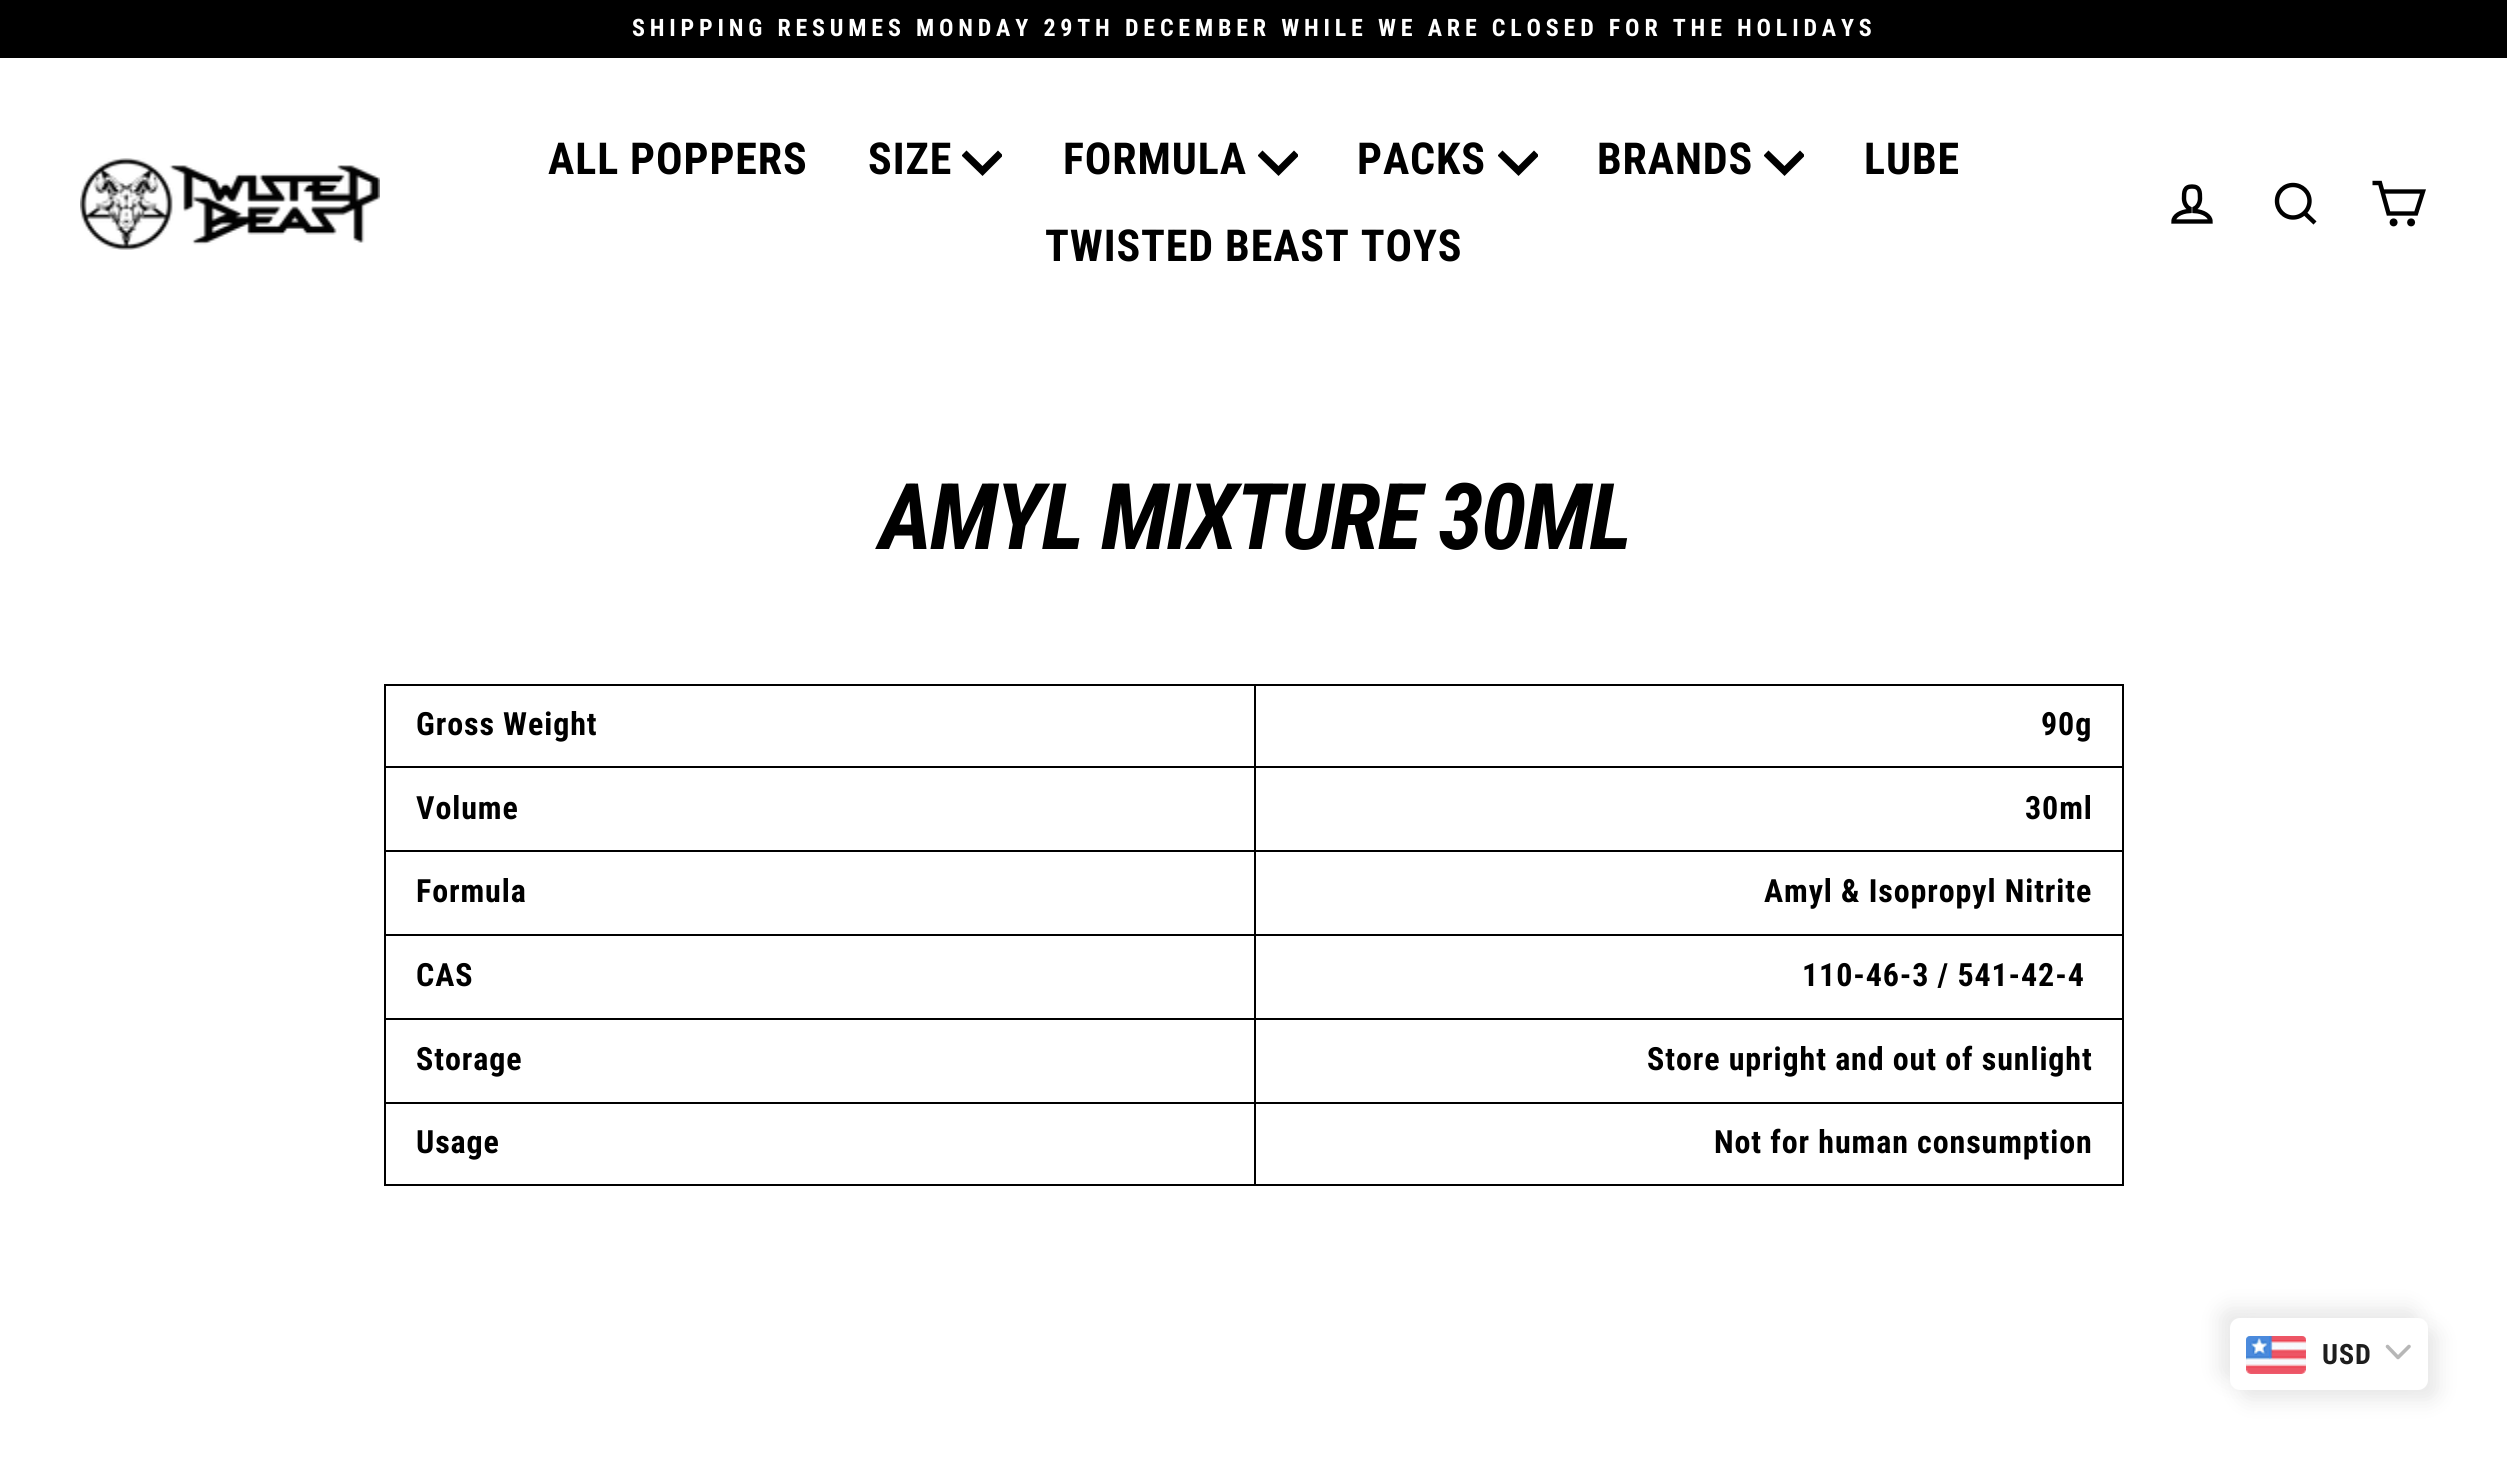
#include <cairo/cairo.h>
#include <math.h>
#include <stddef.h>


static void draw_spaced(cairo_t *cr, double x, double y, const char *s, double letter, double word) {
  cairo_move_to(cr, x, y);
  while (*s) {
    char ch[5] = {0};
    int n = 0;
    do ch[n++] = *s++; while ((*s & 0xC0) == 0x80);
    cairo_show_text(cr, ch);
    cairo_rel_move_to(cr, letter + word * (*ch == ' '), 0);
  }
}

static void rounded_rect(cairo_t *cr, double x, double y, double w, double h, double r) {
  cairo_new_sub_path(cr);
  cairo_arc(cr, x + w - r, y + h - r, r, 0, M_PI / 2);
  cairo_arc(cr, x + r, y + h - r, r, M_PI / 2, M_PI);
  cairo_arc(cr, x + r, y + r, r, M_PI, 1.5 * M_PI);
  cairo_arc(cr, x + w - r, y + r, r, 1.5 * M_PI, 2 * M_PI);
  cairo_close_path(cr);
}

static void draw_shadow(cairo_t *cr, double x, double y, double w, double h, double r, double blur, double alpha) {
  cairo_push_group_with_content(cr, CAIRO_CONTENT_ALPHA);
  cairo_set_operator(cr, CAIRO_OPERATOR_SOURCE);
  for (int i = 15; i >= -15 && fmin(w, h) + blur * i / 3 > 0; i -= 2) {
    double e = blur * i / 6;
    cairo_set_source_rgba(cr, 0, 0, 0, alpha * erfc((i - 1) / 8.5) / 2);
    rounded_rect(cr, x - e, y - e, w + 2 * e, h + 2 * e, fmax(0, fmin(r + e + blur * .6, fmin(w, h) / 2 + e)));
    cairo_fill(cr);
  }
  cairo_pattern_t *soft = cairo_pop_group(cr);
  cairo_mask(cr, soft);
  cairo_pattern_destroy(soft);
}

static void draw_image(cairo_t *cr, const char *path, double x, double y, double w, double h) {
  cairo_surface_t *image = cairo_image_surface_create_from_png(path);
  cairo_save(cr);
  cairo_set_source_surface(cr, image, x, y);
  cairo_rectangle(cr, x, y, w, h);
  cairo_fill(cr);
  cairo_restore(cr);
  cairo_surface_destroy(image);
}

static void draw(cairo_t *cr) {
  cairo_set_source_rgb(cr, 1, 1, 1);
  cairo_paint(cr);
  cairo_set_source_rgb(cr, 0, 0, 0);
  cairo_rectangle(cr, 0, 0, 2507, 58);
  cairo_fill(cr);
  draw_image(cr, "images/1.png", 80, 158, 300, 92);
  cairo_save(cr);
  cairo_rectangle(cr, 962, 142, 40, 40);
  cairo_clip(cr);
  cairo_new_path(cr);
  cairo_move_to(cr, 964, 153);
  cairo_line_to(cr, 982.5, 171);
  cairo_line_to(cr, 1000.5, 153);
  cairo_set_line_width(cr, 7.1);
  cairo_stroke(cr);
  cairo_restore(cr);
  cairo_save(cr);
  cairo_rectangle(cr, 1258, 142, 40, 40);
  cairo_clip(cr);
  cairo_new_path(cr);
  cairo_move_to(cr, 1260, 153);
  cairo_line_to(cr, 1278.5, 171);
  cairo_line_to(cr, 1296.5, 153);
  cairo_set_line_width(cr, 7.1);
  cairo_stroke(cr);
  cairo_restore(cr);
  cairo_save(cr);
  cairo_rectangle(cr, 1498, 142, 40, 40);
  cairo_clip(cr);
  cairo_new_path(cr);
  cairo_move_to(cr, 1500, 153);
  cairo_line_to(cr, 1518.5, 171);
  cairo_line_to(cr, 1536.5, 153);
  cairo_set_line_width(cr, 7.1);
  cairo_stroke(cr);
  cairo_restore(cr);
  cairo_save(cr);
  cairo_rectangle(cr, 1764, 142, 40, 40);
  cairo_clip(cr);
  cairo_new_path(cr);
  cairo_move_to(cr, 1766, 153);
  cairo_line_to(cr, 1784.5, 171);
  cairo_line_to(cr, 1802.5, 153);
  cairo_set_line_width(cr, 7.1);
  cairo_stroke(cr);
  cairo_restore(cr);
  cairo_new_path(cr);
  cairo_move_to(cr, 2194.5, 211);
  cairo_line_to(cr, 2194.5, 208.5);
  cairo_curve_to(cr, 2197.5, 207, 2200, 203, 2200, 198.5);
  cairo_curve_to(cr, 2200, 192, 2200, 186.5, 2192, 186.5);
  cairo_curve_to(cr, 2184, 186.5, 2184, 192, 2184, 198.5);
  cairo_curve_to(cr, 2184, 203, 2186.5, 207, 2189.5, 208.5);
  cairo_line_to(cr, 2189.5, 211);
  cairo_curve_to(cr, 2180.5, 211.5, 2173.5, 216, 2173.5, 221.5);
  cairo_line_to(cr, 2210.5, 221.5);
  cairo_curve_to(cr, 2210.5, 216, 2203.5, 211.5, 2194.5, 211);
  cairo_close_path(cr);
  cairo_set_line_width(cr, 4.4);
  cairo_stroke(cr);
  cairo_new_path(cr);
  cairo_move_to(cr, 2309.5, 201);
  cairo_curve_to(cr, 2309.5, 210, 2302, 217.5, 2293, 217.5);
  cairo_curve_to(cr, 2284, 217.5, 2277, 210, 2277, 201);
  cairo_curve_to(cr, 2277, 192, 2284, 185, 2293, 185);
  cairo_curve_to(cr, 2302, 185, 2309.5, 192, 2309.5, 201);
  cairo_close_path(cr);
  cairo_move_to(cr, 2315, 223);
  cairo_line_to(cr, 2304.5, 213);
  cairo_stroke(cr);
  cairo_new_path(cr);
  cairo_move_to(cr, 2382, 191.5);
  cairo_line_to(cr, 2423, 191.5);
  cairo_line_to(cr, 2416, 213.5);
  cairo_line_to(cr, 2388.5, 213.5);
  cairo_line_to(cr, 2380, 183);
  cairo_line_to(cr, 2372.5, 183);
  cairo_stroke(cr);
  cairo_arc(cr, 2393.6, 222.4, 1.8, 0, 2 * M_PI);
  cairo_fill_preserve(cr);
  cairo_stroke(cr);
  cairo_arc(cr, 2411.1, 222.4, 1.8, 0, 2 * M_PI);
  cairo_fill_preserve(cr);
  cairo_stroke(cr);
  cairo_rectangle(cr, 384, 684, 1740, 502);
  cairo_fill(cr);
  cairo_set_source_rgb(cr, 1, 1, 1);
  cairo_rectangle(cr, 386, 686, 868, 80);
  cairo_fill(cr);
  cairo_rectangle(cr, 1256, 686, 866, 80);
  cairo_fill(cr);
  cairo_rectangle(cr, 386, 768, 868, 82);
  cairo_fill(cr);
  cairo_rectangle(cr, 1256, 768, 866, 82);
  cairo_fill(cr);
  cairo_rectangle(cr, 386, 852, 868, 82);
  cairo_fill(cr);
  cairo_rectangle(cr, 1256, 852, 866, 82);
  cairo_fill(cr);
  cairo_rectangle(cr, 386, 936, 868, 82);
  cairo_fill(cr);
  cairo_rectangle(cr, 1256, 936, 866, 82);
  cairo_fill(cr);
  cairo_rectangle(cr, 386, 1020, 868, 82);
  cairo_fill(cr);
  cairo_rectangle(cr, 1256, 1020, 866, 82);
  cairo_fill(cr);
  cairo_rectangle(cr, 386, 1104, 868, 80);
  cairo_fill(cr);
  cairo_rectangle(cr, 1256, 1104, 866, 80);
  cairo_fill(cr);
  cairo_set_source_rgb(cr, 232 / 255.0, 232 / 255.0, 232 / 255.0);
  draw_shadow(cr, 2220, 1308, 198, 72, 10, 10, 1);
  draw_shadow(cr, 2240, 1328, 198, 72, 10, 10, 1);
  cairo_set_source_rgb(cr, 1, 1, 1);
  rounded_rect(cr, 2230, 1318, 198, 72, 10);
  cairo_fill(cr);
  draw_image(cr, "images/2.png", 2246, 1336, 60, 38);
  cairo_new_path(cr);
  cairo_move_to(cr, 2387.5, 1346.5);
  cairo_line_to(cr, 2398, 1357.5);
  cairo_line_to(cr, 2409, 1346.5);
  cairo_set_source_rgb(cr, 183 / 255.0, 183 / 255.0, 183 / 255.0);
  cairo_set_line_width(cr, 3.6);
  cairo_set_line_cap(cr, CAIRO_LINE_CAP_ROUND);
  cairo_set_line_join(cr, CAIRO_LINE_JOIN_ROUND);
  cairo_stroke(cr);
  cairo_select_font_face(cr, "Roboto Condensed", CAIRO_FONT_SLANT_NORMAL, CAIRO_FONT_WEIGHT_BOLD);
  cairo_set_font_size(cr, 24);
  cairo_set_source_rgb(cr, 1, 1, 1);
  draw_spaced(cr, 632, 36, "SHIPPING RESUMES MONDAY 29TH DECEMBER WHILE WE ARE CLOSED FOR THE HOLIDAYS", 4.8, 0);
  cairo_set_font_size(cr, 44);
  cairo_set_source_rgb(cr, 0, 0, 0);
  draw_spaced(cr, 548, 174, "ALL POPPERS", 0.9, 0);
  draw_spaced(cr, 868, 174, "SIZE", 0.9, 0);
  draw_spaced(cr, 1063, 174, "FORMULA", 0.9, 0);
  draw_spaced(cr, 1357, 174, "PACKS", 0.9, 0);
  draw_spaced(cr, 1597, 174, "BRANDS", 0.9, 0);
  draw_spaced(cr, 1864, 174, "LUBE", 0.9, 0);
  draw_spaced(cr, 1045, 261, "TWISTED BEAST TOYS", 0.9, 0);
  cairo_select_font_face(cr, "Roboto Condensed", CAIRO_FONT_SLANT_ITALIC, CAIRO_FONT_WEIGHT_BOLD);
  cairo_set_font_size(cr, 92);
  draw_spaced(cr, 879, 549, "AMYL MIXTURE 30ML", -2.25, 0);
  cairo_select_font_face(cr, "Roboto Condensed", CAIRO_FONT_SLANT_NORMAL, CAIRO_FONT_WEIGHT_BOLD);
  cairo_set_font_size(cr, 32);
  draw_spaced(cr, 416, 735, "Gross Weight", 0.9, 0);
  draw_spaced(cr, 2041, 735, "90g", 0.9, 0);
  draw_spaced(cr, 416, 819, "Volume", 0.9, 0);
  draw_spaced(cr, 2025, 819, "30ml", 0.9, 0);
  draw_spaced(cr, 416, 902, "Formula", 0.9, 0);
  draw_spaced(cr, 1764, 902, "Amyl & Isopropyl Nitrite", 0.9, 0);
  draw_spaced(cr, 416, 986, "CAS", 0.9, 0);
  draw_spaced(cr, 1802, 986, "110-46-3 / 541-42-4", 0.9, 0);
  draw_spaced(cr, 416, 1070, "Storage", 0.9, 0);
  draw_spaced(cr, 1647, 1070, "Store upright and out of sunlight", 0.9, 0);
  draw_spaced(cr, 416, 1153, "Usage", 0.9, 0);
  draw_spaced(cr, 1714, 1153, "Not for human consumption", 0.9, 0);
  cairo_set_font_size(cr, 28);
  cairo_set_source_rgb(cr, 30 / 255.0, 30 / 255.0, 30 / 255.0);
  draw_spaced(cr, 2322, 1364, "USD", 0.9, 0);
}

int main(void) {
  cairo_surface_t *surface = cairo_image_surface_create(CAIRO_FORMAT_RGB24, 2507, 1474);
  cairo_t *cr = cairo_create(surface);
  cairo_font_options_t *options = cairo_font_options_create();
  cairo_font_options_set_hint_metrics(options, CAIRO_HINT_METRICS_OFF);
  cairo_font_options_set_hint_style(options, CAIRO_HINT_STYLE_NONE);
  cairo_set_font_options(cr, options);
  cairo_set_miter_limit(cr, 4);
  draw(cr);
  cairo_surface_write_to_png(surface, "out.png");
  cairo_font_options_destroy(options);
  cairo_destroy(cr);
  cairo_surface_destroy(surface);
  return 0;
}
